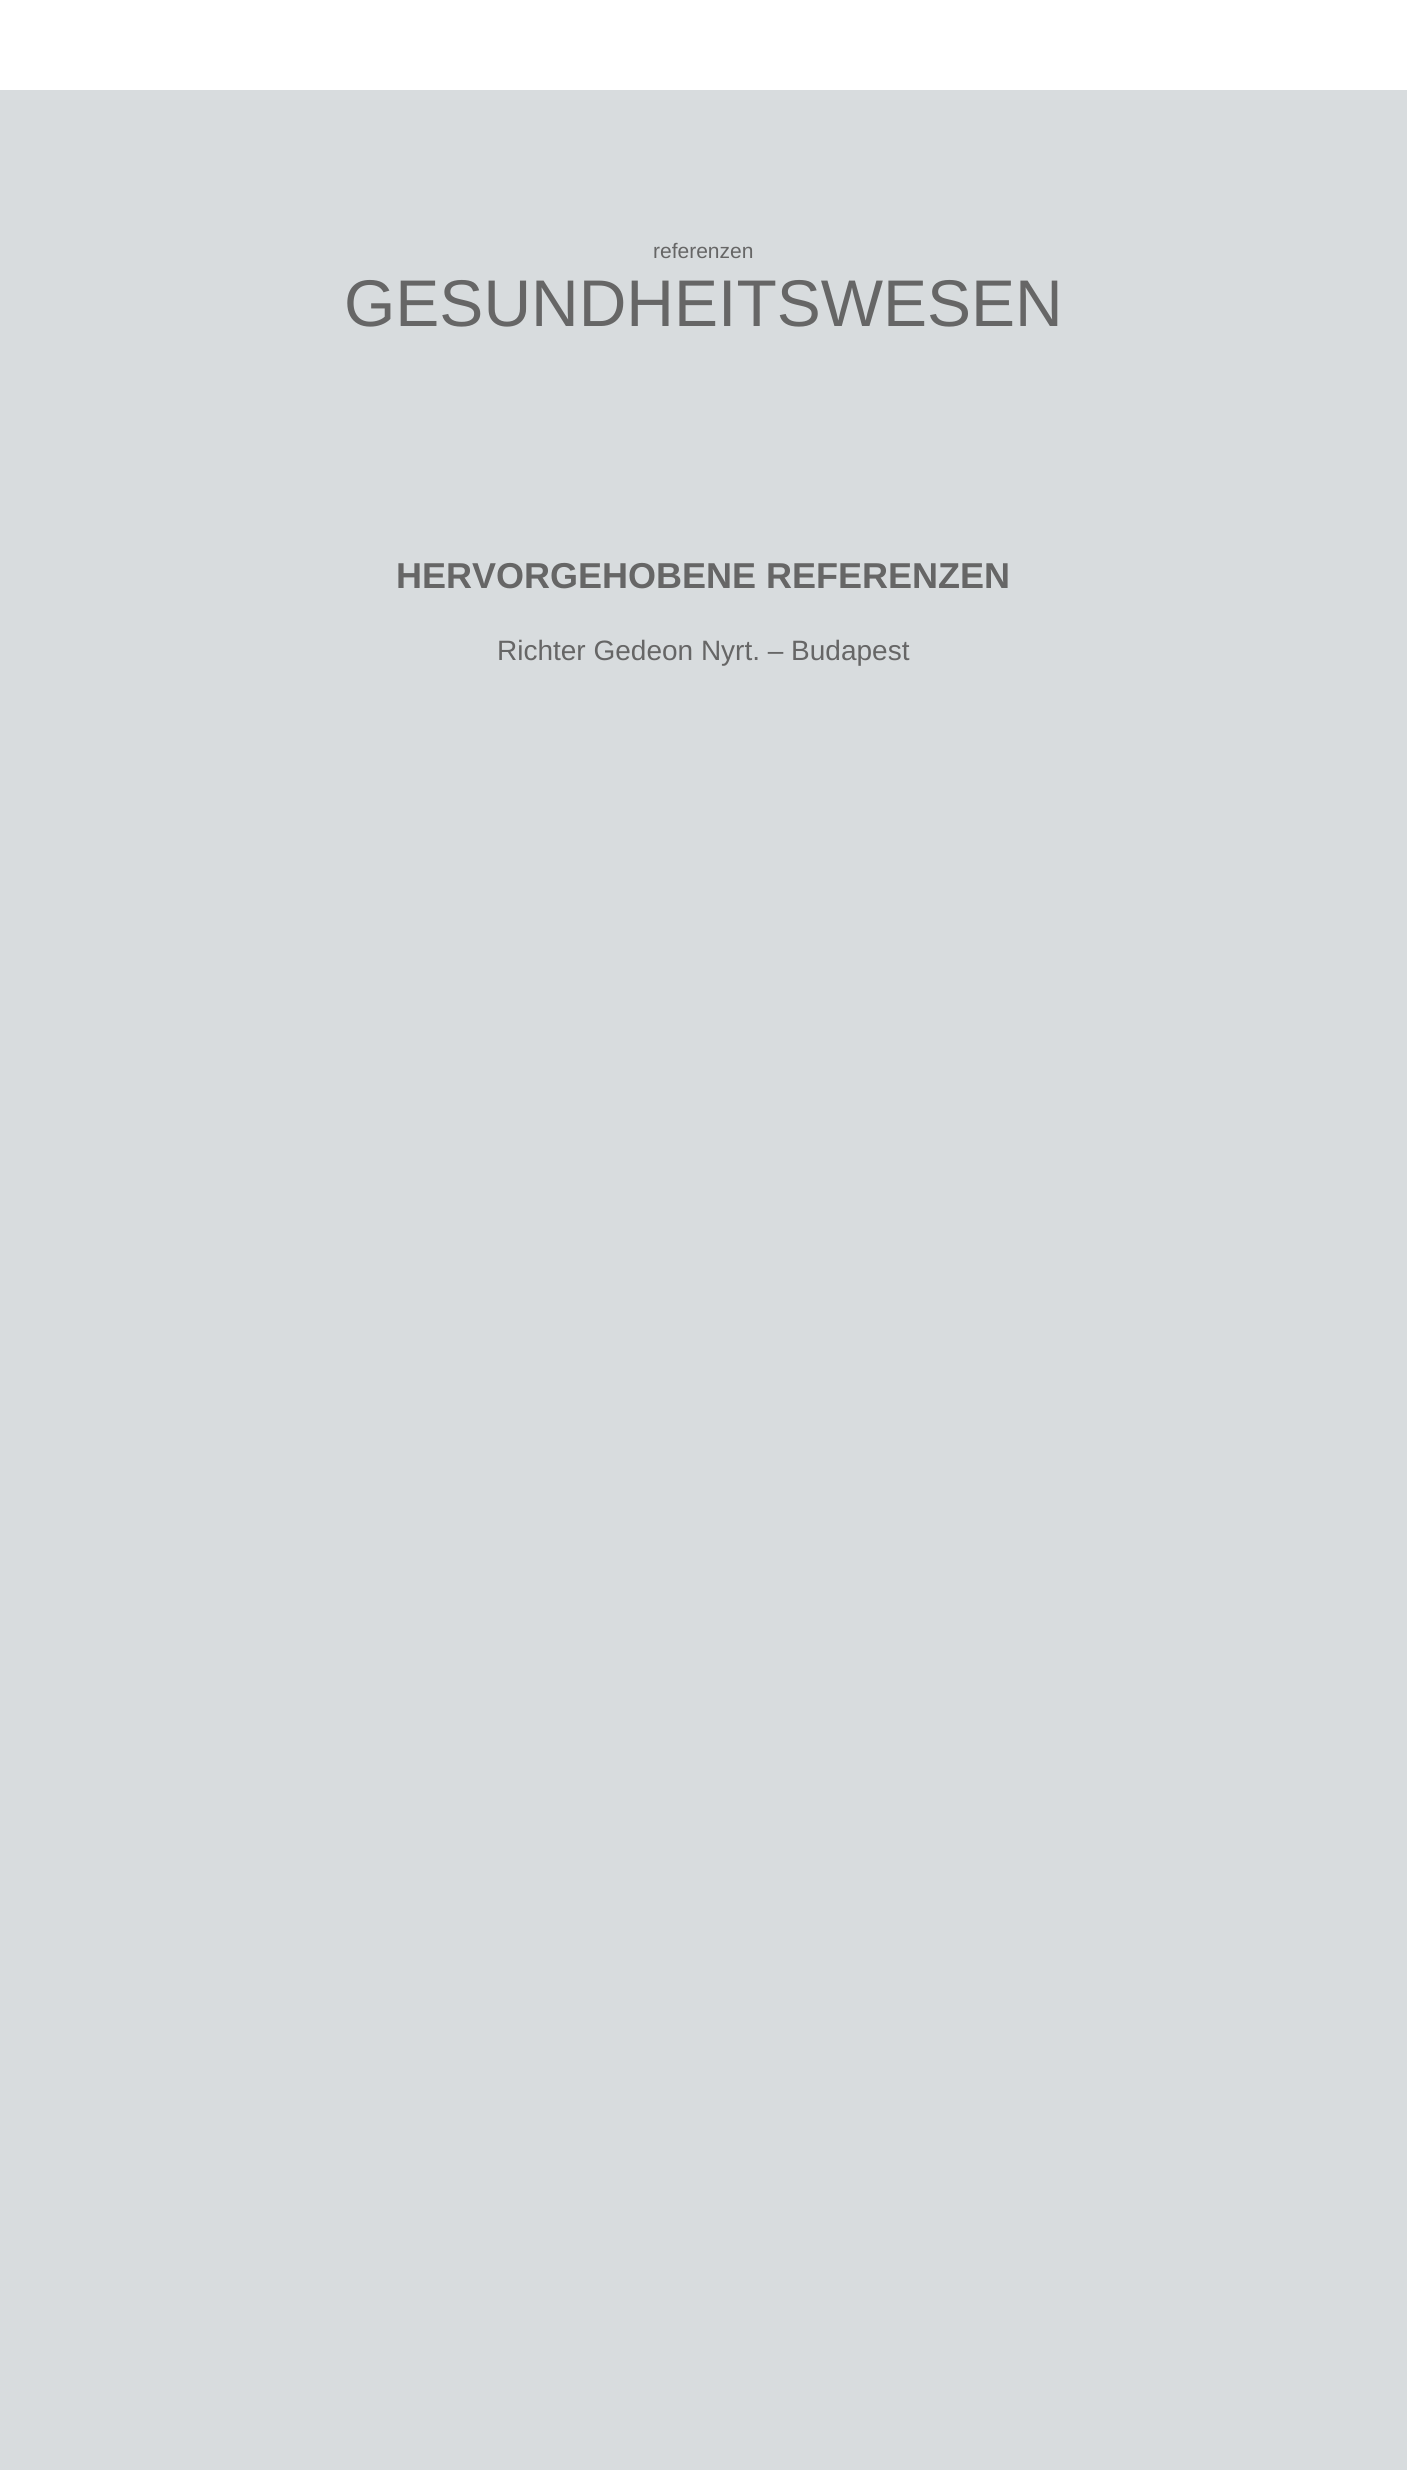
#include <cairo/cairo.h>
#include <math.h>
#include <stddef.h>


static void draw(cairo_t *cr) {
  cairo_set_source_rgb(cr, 216 / 255.0, 220 / 255.0, 222 / 255.0);
  cairo_paint(cr);
  cairo_set_source_rgb(cr, 1, 1, 1);
  cairo_rectangle(cr, 0, 0, 1407, 90);
  cairo_fill(cr);
  cairo_select_font_face(cr, "Liberation Sans", CAIRO_FONT_SLANT_NORMAL, CAIRO_FONT_WEIGHT_NORMAL);
  cairo_set_font_size(cr, 21);
  cairo_set_source_rgb(cr, 102 / 255.0, 102 / 255.0, 102 / 255.0);
  cairo_move_to(cr, 653, 258);
  cairo_show_text(cr, "referenzen");
  cairo_set_font_size(cr, 66);
  cairo_move_to(cr, 344, 326);
  cairo_show_text(cr, "GESUNDHEITSWESEN");
  cairo_select_font_face(cr, "Liberation Sans", CAIRO_FONT_SLANT_NORMAL, CAIRO_FONT_WEIGHT_BOLD);
  cairo_set_font_size(cr, 36);
  cairo_move_to(cr, 396, 588);
  cairo_show_text(cr, "HERVORGEHOBENE REFERENZEN");
  cairo_select_font_face(cr, "Liberation Sans", CAIRO_FONT_SLANT_NORMAL, CAIRO_FONT_WEIGHT_NORMAL);
  cairo_set_font_size(cr, 28);
  cairo_move_to(cr, 497, 660);
  cairo_show_text(cr, "Richter Gedeon Nyrt. – Budapest");
}

int main(void) {
  cairo_surface_t *surface = cairo_image_surface_create(CAIRO_FORMAT_RGB24, 1407, 2470);
  cairo_t *cr = cairo_create(surface);
  cairo_font_options_t *options = cairo_font_options_create();
  cairo_font_options_set_hint_metrics(options, CAIRO_HINT_METRICS_OFF);
  cairo_font_options_set_hint_style(options, CAIRO_HINT_STYLE_NONE);
  cairo_set_font_options(cr, options);
  cairo_set_miter_limit(cr, 4);
  draw(cr);
  cairo_surface_write_to_png(surface, "out.png");
  cairo_font_options_destroy(options);
  cairo_destroy(cr);
  cairo_surface_destroy(surface);
  return 0;
}
